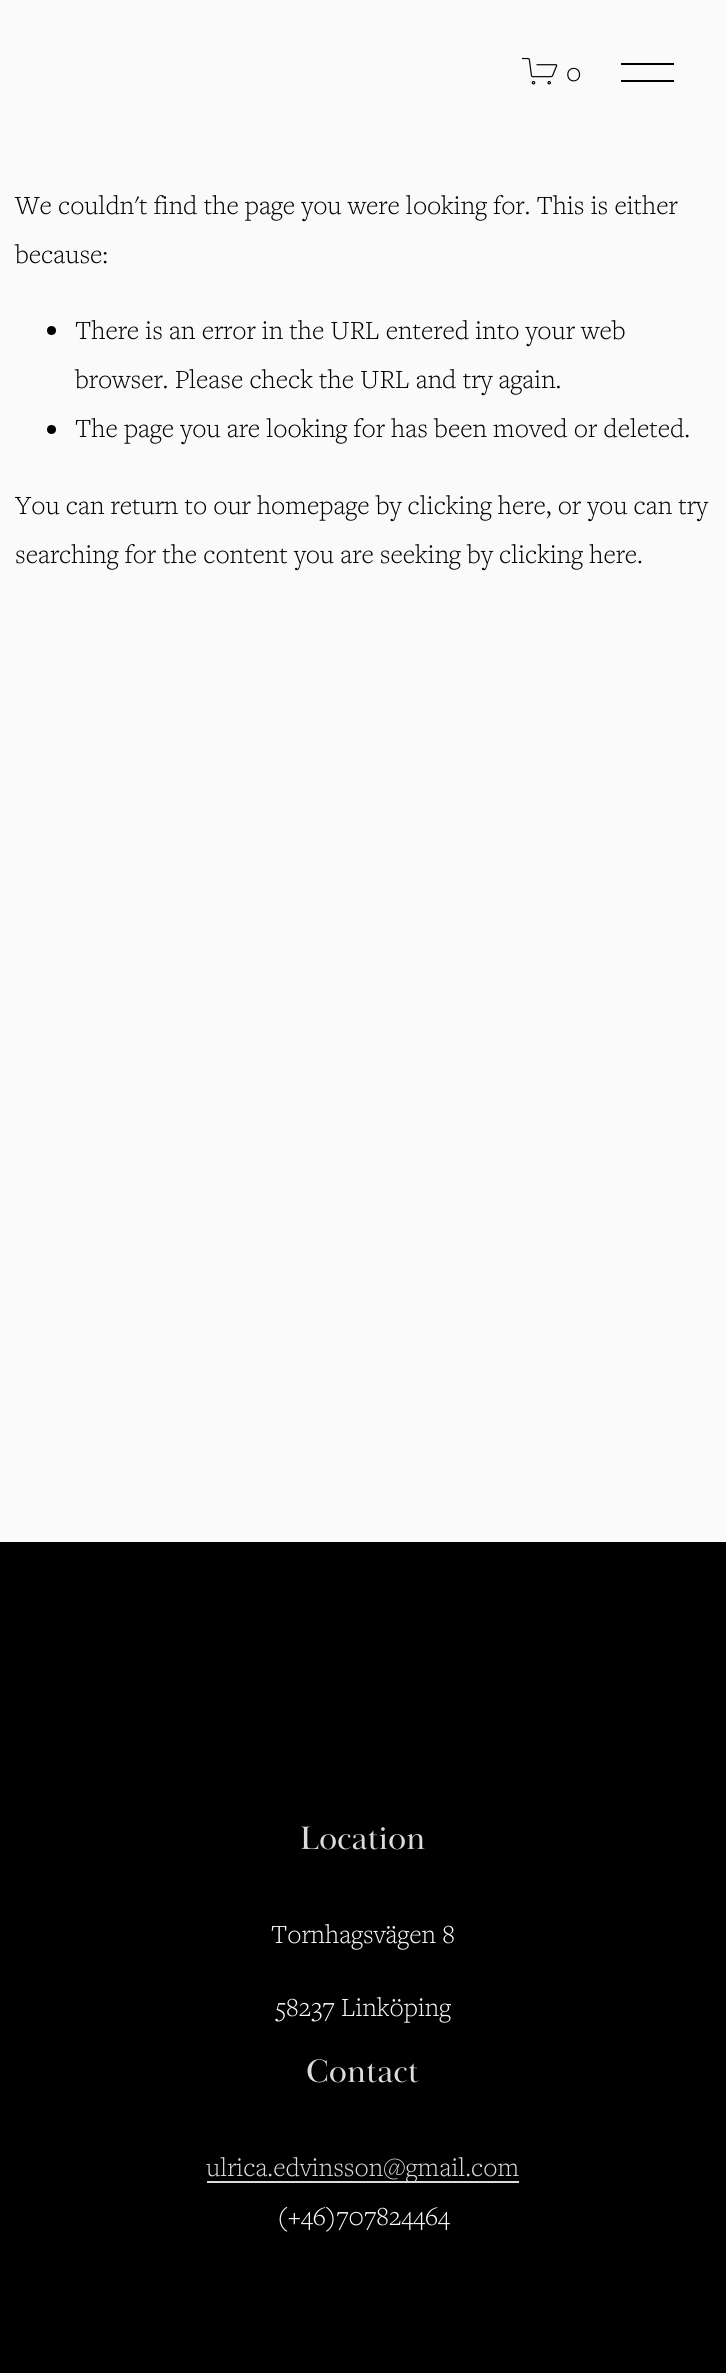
#include <cairo/cairo.h>
#include <math.h>
#include <stddef.h>


static void draw_image(cairo_t *cr, const char *path, double x, double y, double w, double h) {
  cairo_surface_t *image = cairo_image_surface_create_from_png(path);
  cairo_save(cr);
  cairo_set_source_surface(cr, image, x, y);
  cairo_rectangle(cr, x, y, w, h);
  cairo_fill(cr);
  cairo_restore(cr);
  cairo_surface_destroy(image);
}

static void draw(cairo_t *cr) {
  cairo_set_source_rgb(cr, 250 / 255.0, 250 / 255.0, 250 / 255.0);
  cairo_paint(cr);
  draw_image(cr, "images/1.png", 522, 57, 36, 28);
  cairo_set_source_rgb(cr, 0, 0, 0);
  cairo_rectangle(cr, 621, 63, 53, 2);
  cairo_fill(cr);
  cairo_rectangle(cr, 621, 80, 53, 2);
  cairo_fill(cr);
  cairo_arc(cr, 51.5, 330.5, 4.5, 0, 2 * M_PI);
  cairo_fill(cr);
  cairo_arc(cr, 51.5, 429.5, 4.5, 0, 2 * M_PI);
  cairo_fill(cr);
  cairo_rectangle(cr, 0, 1542, 726, 831);
  cairo_fill(cr);
  cairo_set_source_rgb(cr, 220 / 255.0, 220 / 255.0, 220 / 255.0);
  cairo_rectangle(cr, 207, 2181, 312, 2);
  cairo_fill(cr);
  cairo_select_font_face(cr, "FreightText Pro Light", CAIRO_FONT_SLANT_NORMAL, CAIRO_FONT_WEIGHT_NORMAL);
  cairo_set_font_size(cr, 27.25);
  cairo_set_source_rgb(cr, 0, 0, 0);
  cairo_move_to(cr, 566, 81);
  cairo_show_text(cr, "0");
  cairo_move_to(cr, 15, 214);
  cairo_show_text(cr, "We couldn't find the page you were looking for. This is either");
  cairo_move_to(cr, 15, 263);
  cairo_show_text(cr, "because:");
  cairo_move_to(cr, 75, 339);
  cairo_show_text(cr, "There is an error in the URL entered into your web");
  cairo_move_to(cr, 75, 388);
  cairo_show_text(cr, "browser. Please check the URL and try again.");
  cairo_move_to(cr, 75, 437);
  cairo_show_text(cr, "The page you are looking for has been moved or deleted.");
  cairo_move_to(cr, 15, 514);
  cairo_show_text(cr, "You can return to our homepage by clicking here, or you can try");
  cairo_move_to(cr, 15, 563);
  cairo_show_text(cr, "searching for the content you are seeking by clicking here.");
  cairo_select_font_face(cr, "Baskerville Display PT", CAIRO_FONT_SLANT_NORMAL, CAIRO_FONT_WEIGHT_NORMAL);
  cairo_set_font_size(cr, 33.5);
  cairo_set_source_rgb(cr, 220 / 255.0, 220 / 255.0, 220 / 255.0);
  cairo_move_to(cr, 300, 1849);
  cairo_show_text(cr, "Location");
  cairo_select_font_face(cr, "FreightText Pro Light", CAIRO_FONT_SLANT_NORMAL, CAIRO_FONT_WEIGHT_NORMAL);
  cairo_set_font_size(cr, 27.25);
  cairo_set_source_rgb(cr, 250 / 255.0, 250 / 255.0, 250 / 255.0);
  cairo_move_to(cr, 271, 1943);
  cairo_show_text(cr, "Tornhagsvägen 8");
  cairo_move_to(cr, 275, 2016);
  cairo_show_text(cr, "58237 Linköping");
  cairo_select_font_face(cr, "Baskerville Display PT", CAIRO_FONT_SLANT_NORMAL, CAIRO_FONT_WEIGHT_NORMAL);
  cairo_set_font_size(cr, 33.5);
  cairo_set_source_rgb(cr, 220 / 255.0, 220 / 255.0, 220 / 255.0);
  cairo_move_to(cr, 306, 2082);
  cairo_show_text(cr, "Contact");
  cairo_select_font_face(cr, "FreightText Pro Light", CAIRO_FONT_SLANT_NORMAL, CAIRO_FONT_WEIGHT_NORMAL);
  cairo_set_font_size(cr, 27.25);
  cairo_move_to(cr, 206, 2176);
  cairo_show_text(cr, "ulrica.edvinsson@gmail.com");
  cairo_set_source_rgb(cr, 250 / 255.0, 250 / 255.0, 250 / 255.0);
  cairo_move_to(cr, 277, 2225);
  cairo_show_text(cr, "(+46)707824464");
}

int main(void) {
  cairo_surface_t *surface = cairo_image_surface_create(CAIRO_FORMAT_RGB24, 726, 2373);
  cairo_t *cr = cairo_create(surface);
  cairo_font_options_t *options = cairo_font_options_create();
  cairo_font_options_set_hint_metrics(options, CAIRO_HINT_METRICS_OFF);
  cairo_font_options_set_hint_style(options, CAIRO_HINT_STYLE_NONE);
  cairo_set_font_options(cr, options);
  cairo_set_miter_limit(cr, 4);
  draw(cr);
  cairo_surface_write_to_png(surface, "out.png");
  cairo_font_options_destroy(options);
  cairo_destroy(cr);
  cairo_surface_destroy(surface);
  return 0;
}
